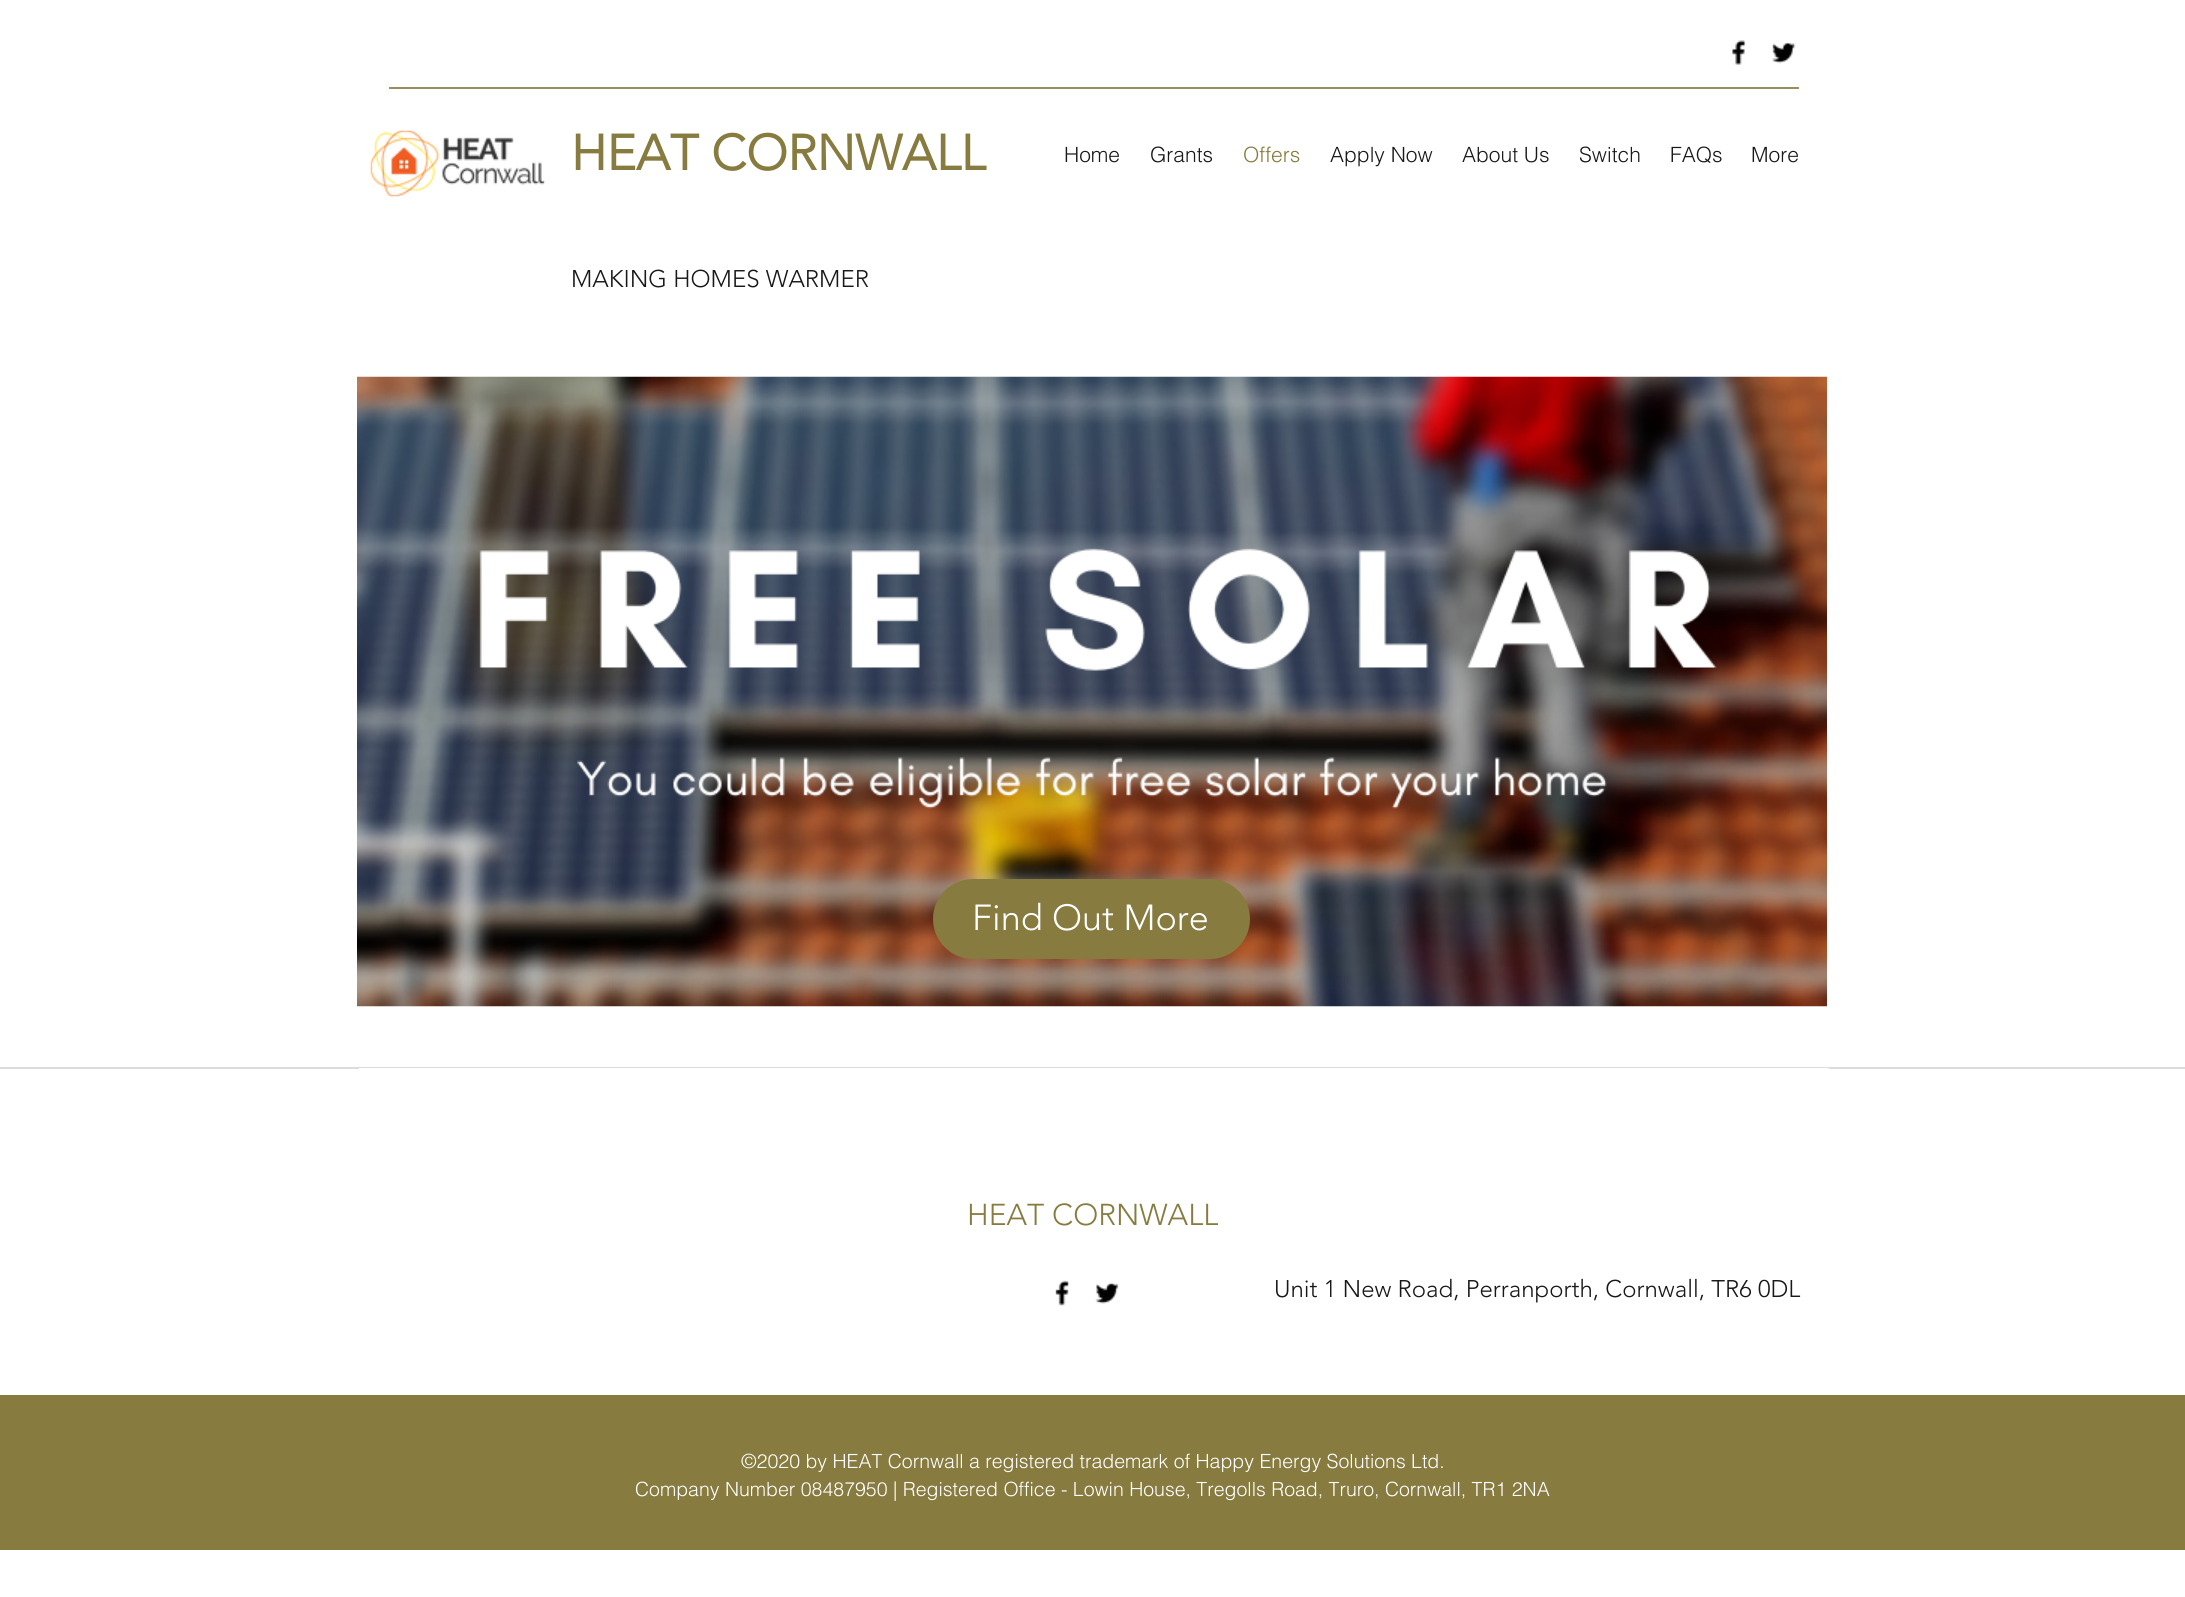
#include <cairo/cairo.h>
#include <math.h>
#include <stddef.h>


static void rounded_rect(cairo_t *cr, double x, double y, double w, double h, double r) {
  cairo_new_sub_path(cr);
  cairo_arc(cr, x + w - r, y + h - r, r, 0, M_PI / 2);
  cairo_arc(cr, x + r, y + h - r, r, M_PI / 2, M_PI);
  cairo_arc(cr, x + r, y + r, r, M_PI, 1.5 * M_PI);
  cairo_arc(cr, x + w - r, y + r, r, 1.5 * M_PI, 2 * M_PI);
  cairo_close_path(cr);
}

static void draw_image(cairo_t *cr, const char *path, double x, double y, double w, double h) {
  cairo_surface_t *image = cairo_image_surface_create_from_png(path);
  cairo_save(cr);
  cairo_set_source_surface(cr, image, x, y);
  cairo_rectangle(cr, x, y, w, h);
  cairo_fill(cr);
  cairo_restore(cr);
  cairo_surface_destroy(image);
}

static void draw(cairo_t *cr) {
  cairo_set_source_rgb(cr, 1, 1, 1);
  cairo_paint(cr);
  draw_image(cr, "images/1.png", 1732, 40, 14, 25);
  draw_image(cr, "images/2.png", 1771, 42, 25, 22);
  cairo_set_source_rgb(cr, 153 / 255.0, 143 / 255.0, 92 / 255.0);
  cairo_rectangle(cr, 389, 87, 1410, 2);
  cairo_fill(cr);
  draw_image(cr, "images/3.png", 370, 130, 175, 67);
  draw_image(cr, "images/4.png", 357, 376, 1470, 631);
  cairo_set_source_rgb(cr, 135 / 255.0, 123 / 255.0, 63 / 255.0);
  rounded_rect(cr, 933, 879, 317, 80, 40);
  cairo_fill(cr);
  cairo_set_source_rgb(cr, 220 / 255.0, 220 / 255.0, 220 / 255.0);
  cairo_rectangle(cr, 0, 1067, 2185, 2);
  cairo_fill(cr);
  cairo_set_source_rgb(cr, 1, 1, 1);
  cairo_rectangle(cr, 359, 1068, 1470, 1);
  cairo_fill(cr);
  draw_image(cr, "images/5.png", 1055, 1280, 14, 26);
  draw_image(cr, "images/6.png", 1095, 1282, 24, 22);
  cairo_set_source_rgb(cr, 135 / 255.0, 123 / 255.0, 63 / 255.0);
  cairo_rectangle(cr, 0, 1395, 2185, 155);
  cairo_fill(cr);
  cairo_select_font_face(cr, "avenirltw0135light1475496", CAIRO_FONT_SLANT_NORMAL, CAIRO_FONT_WEIGHT_BOLD);
  cairo_set_font_size(cr, 49.5);
  cairo_move_to(cr, 571, 170);
  cairo_show_text(cr, "HEAT CORNWALL");
  cairo_select_font_face(cr, "helvetica Light", CAIRO_FONT_SLANT_NORMAL, CAIRO_FONT_WEIGHT_NORMAL);
  cairo_set_font_size(cr, 21);
  cairo_set_source_rgb(cr, 24 / 255.0, 24 / 255.0, 24 / 255.0);
  cairo_move_to(cr, 1064, 162);
  cairo_show_text(cr, "Home");
  cairo_move_to(cr, 1150, 162);
  cairo_show_text(cr, "Grants");
  cairo_set_source_rgb(cr, 135 / 255.0, 123 / 255.0, 63 / 255.0);
  cairo_move_to(cr, 1243, 162);
  cairo_show_text(cr, "Offers");
  cairo_set_source_rgb(cr, 24 / 255.0, 24 / 255.0, 24 / 255.0);
  cairo_move_to(cr, 1330, 162);
  cairo_show_text(cr, "Apply Now");
  cairo_move_to(cr, 1462, 162);
  cairo_show_text(cr, "About Us");
  cairo_move_to(cr, 1579, 162);
  cairo_show_text(cr, "Switch");
  cairo_move_to(cr, 1670, 162);
  cairo_show_text(cr, "FAQs");
  cairo_move_to(cr, 1751, 162);
  cairo_show_text(cr, "More");
  cairo_select_font_face(cr, "avenirltw0135light1475496 Light", CAIRO_FONT_SLANT_NORMAL, CAIRO_FONT_WEIGHT_NORMAL);
  cairo_set_font_size(cr, 24);
  cairo_move_to(cr, 571, 287);
  cairo_show_text(cr, "MAKING HOMES WARMER");
  cairo_set_font_size(cr, 36);
  cairo_set_source_rgb(cr, 1, 1, 1);
  cairo_move_to(cr, 972, 930);
  cairo_show_text(cr, "Find Out More");
  cairo_set_font_size(cr, 30);
  cairo_set_source_rgb(cr, 135 / 255.0, 123 / 255.0, 63 / 255.0);
  cairo_move_to(cr, 967, 1225);
  cairo_show_text(cr, "HEAT CORNWALL");
  cairo_set_font_size(cr, 24);
  cairo_set_source_rgb(cr, 24 / 255.0, 24 / 255.0, 24 / 255.0);
  cairo_move_to(cr, 1274, 1297);
  cairo_show_text(cr, "Unit 1 New Road, Perranporth, Cornwall, TR6 0DL");
  cairo_select_font_face(cr, "helvetica Light", CAIRO_FONT_SLANT_NORMAL, CAIRO_FONT_WEIGHT_NORMAL);
  cairo_set_font_size(cr, 19.5);
  cairo_set_source_rgb(cr, 1, 1, 1);
  cairo_move_to(cr, 741, 1468);
  cairo_show_text(cr, "©2020 by HEAT Cornwall a registered trademark of Happy Energy Solutions Ltd.");
  cairo_move_to(cr, 635, 1496);
  cairo_show_text(cr, "Company Number 08487950 | Registered Office - Lowin House, Tregolls Road, Truro, Cornwall, TR1 2NA");
}

int main(void) {
  cairo_surface_t *surface = cairo_image_surface_create(CAIRO_FORMAT_RGB24, 2185, 1597);
  cairo_t *cr = cairo_create(surface);
  cairo_font_options_t *options = cairo_font_options_create();
  cairo_font_options_set_hint_metrics(options, CAIRO_HINT_METRICS_OFF);
  cairo_font_options_set_hint_style(options, CAIRO_HINT_STYLE_NONE);
  cairo_set_font_options(cr, options);
  cairo_set_miter_limit(cr, 4);
  draw(cr);
  cairo_surface_write_to_png(surface, "out.png");
  cairo_font_options_destroy(options);
  cairo_destroy(cr);
  cairo_surface_destroy(surface);
  return 0;
}
